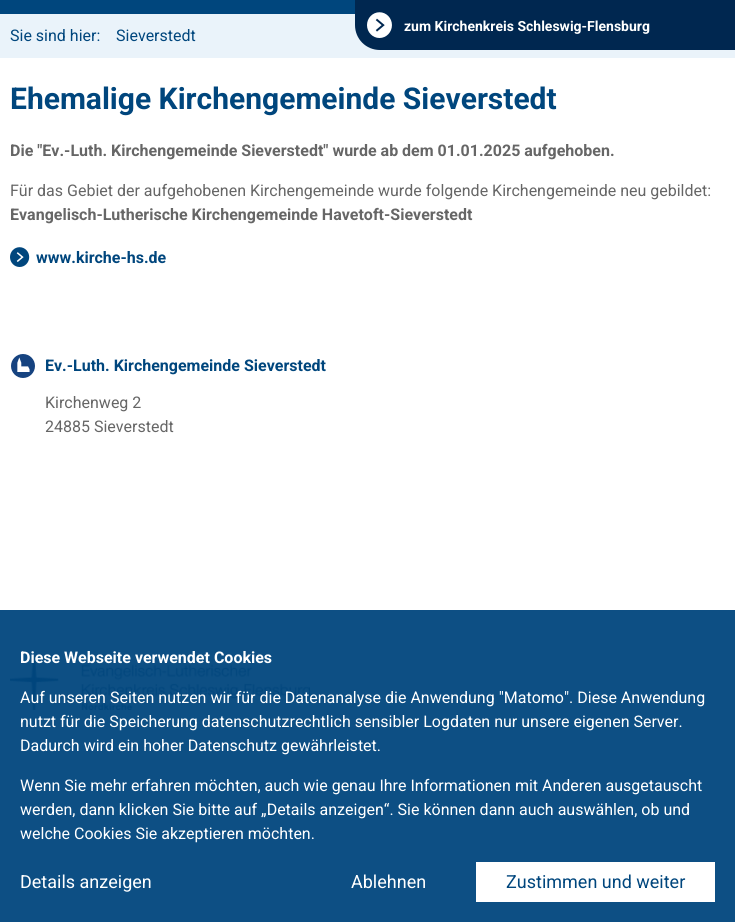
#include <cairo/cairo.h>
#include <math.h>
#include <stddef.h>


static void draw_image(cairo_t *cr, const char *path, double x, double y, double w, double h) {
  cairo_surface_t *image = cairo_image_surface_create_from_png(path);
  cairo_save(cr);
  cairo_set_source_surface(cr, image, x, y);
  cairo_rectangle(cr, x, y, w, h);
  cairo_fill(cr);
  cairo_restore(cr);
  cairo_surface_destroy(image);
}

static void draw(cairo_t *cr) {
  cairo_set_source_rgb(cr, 234 / 255.0, 243 / 255.0, 250 / 255.0);
  cairo_paint(cr);
  cairo_set_source_rgb(cr, 0, 39 / 255.0, 80 / 255.0);
  cairo_new_path(cr);
  cairo_move_to(cr, 355, 0);
  cairo_line_to(cr, 735, 0);
  cairo_line_to(cr, 735, 50);
  cairo_line_to(cr, 380, 50);
  cairo_curve_to(cr, 366, 50, 355, 39, 355, 25);
  cairo_close_path(cr);
  cairo_fill(cr);
  draw_image(cr, "images/1.png", 367, 12, 25, 26);
  cairo_set_source_rgb(cr, 0, 70 / 255.0, 125 / 255.0);
  cairo_rectangle(cr, 0, 0, 355, 14);
  cairo_fill(cr);
  cairo_set_source_rgb(cr, 1, 1, 1);
  cairo_rectangle(cr, 0, 58, 735, 552);
  cairo_fill(cr);
  cairo_set_source_rgb(cr, 13 / 255.0, 79 / 255.0, 132 / 255.0);
  cairo_rectangle(cr, 0, 610, 735, 312);
  cairo_fill(cr);
  draw_image(cr, "images/2.png", 10, 247, 20, 20);
  draw_image(cr, "images/3.png", 11, 354, 24, 24);
  draw_image(cr, "images/4.png", 10, 656, 300, 54);
  cairo_set_source_rgb(cr, 1, 1, 1);
  cairo_rectangle(cr, 476, 862, 239, 40);
  cairo_fill(cr);
  cairo_select_font_face(cr, "Roboto", CAIRO_FONT_SLANT_NORMAL, CAIRO_FONT_WEIGHT_BOLD);
  cairo_set_font_size(cr, 14);
  cairo_move_to(cr, 404, 31);
  cairo_show_text(cr, "zum Kirchenkreis Schleswig-Flensburg");
  cairo_select_font_face(cr, "Roboto", CAIRO_FONT_SLANT_NORMAL, CAIRO_FONT_WEIGHT_NORMAL);
  cairo_set_font_size(cr, 16);
  cairo_set_source_rgb(cr, 0, 70 / 255.0, 125 / 255.0);
  cairo_move_to(cr, 10, 41);
  cairo_show_text(cr, "Sie sind hier:");
  cairo_move_to(cr, 116, 41);
  cairo_show_text(cr, "Sieverstedt");
  cairo_select_font_face(cr, "Roboto", CAIRO_FONT_SLANT_NORMAL, CAIRO_FONT_WEIGHT_BOLD);
  cairo_set_font_size(cr, 30);
  cairo_move_to(cr, 10, 109);
  cairo_show_text(cr, "Ehemalige Kirchengemeinde Sieverstedt");
  cairo_set_font_size(cr, 16);
  cairo_set_source_rgb(cr, 102 / 255.0, 102 / 255.0, 102 / 255.0);
  cairo_move_to(cr, 10, 156);
  cairo_show_text(cr, "Die \"Ev.-Luth. Kirchengemeinde Sieverstedt\" wurde ab dem 01.01.2025 aufgehoben.");
  cairo_select_font_face(cr, "Roboto", CAIRO_FONT_SLANT_NORMAL, CAIRO_FONT_WEIGHT_NORMAL);
  cairo_move_to(cr, 10, 196);
  cairo_show_text(cr, "Für das Gebiet der aufgehobenen Kirchengemeinde wurde folgende Kirchengemeinde neu gebildet:");
  cairo_select_font_face(cr, "Roboto", CAIRO_FONT_SLANT_NORMAL, CAIRO_FONT_WEIGHT_BOLD);
  cairo_move_to(cr, 10, 220);
  cairo_show_text(cr, "Evangelisch-Lutherische Kirchengemeinde Havetoft-Sieverstedt");
  cairo_set_source_rgb(cr, 0, 70 / 255.0, 125 / 255.0);
  cairo_move_to(cr, 36, 263);
  cairo_show_text(cr, "www.kirche-hs.de");
  cairo_move_to(cr, 45, 371);
  cairo_show_text(cr, "Ev.-Luth. Kirchengemeinde Sieverstedt");
  cairo_select_font_face(cr, "Roboto", CAIRO_FONT_SLANT_NORMAL, CAIRO_FONT_WEIGHT_NORMAL);
  cairo_set_source_rgb(cr, 102 / 255.0, 102 / 255.0, 102 / 255.0);
  cairo_move_to(cr, 45, 408);
  cairo_show_text(cr, "Kirchenweg 2");
  cairo_move_to(cr, 45, 432);
  cairo_show_text(cr, "24885 Sieverstedt");
  cairo_select_font_face(cr, "Roboto", CAIRO_FONT_SLANT_NORMAL, CAIRO_FONT_WEIGHT_BOLD);
  cairo_set_source_rgb(cr, 1, 1, 1);
  cairo_move_to(cr, 20, 663);
  cairo_show_text(cr, "Diese Webseite verwendet Cookies");
  cairo_select_font_face(cr, "Roboto", CAIRO_FONT_SLANT_NORMAL, CAIRO_FONT_WEIGHT_NORMAL);
  cairo_move_to(cr, 20, 703);
  cairo_show_text(cr, "Auf unseren Seiten nutzen wir für die Datenanalyse die Anwendung \"Matomo\". Diese Anwendung");
  cairo_move_to(cr, 20, 727);
  cairo_show_text(cr, "nutzt für die Speicherung datenschutzrechtlich sensibler Logdaten nur unsere eigenen Server.");
  cairo_move_to(cr, 20, 751);
  cairo_show_text(cr, "Dadurch wird ein hoher Datenschutz gewährleistet.");
  cairo_move_to(cr, 20, 791);
  cairo_show_text(cr, "Wenn Sie mehr erfahren möchten, auch wie genau Ihre Informationen mit Anderen ausgetauscht");
  cairo_move_to(cr, 20, 815);
  cairo_show_text(cr, "werden, dann klicken Sie bitte auf „Details anzeigen“. Sie können dann auch auswählen, ob und");
  cairo_move_to(cr, 20, 839);
  cairo_show_text(cr, "welche Cookies Sie akzeptieren möchten.");
  cairo_set_font_size(cr, 18);
  cairo_move_to(cr, 20, 888);
  cairo_show_text(cr, "Details anzeigen");
  cairo_move_to(cr, 351, 888);
  cairo_show_text(cr, "Ablehnen");
  cairo_set_source_rgb(cr, 0, 70 / 255.0, 125 / 255.0);
  cairo_move_to(cr, 506, 888);
  cairo_show_text(cr, "Zustimmen und weiter");
}

int main(void) {
  cairo_surface_t *surface = cairo_image_surface_create(CAIRO_FORMAT_RGB24, 735, 922);
  cairo_t *cr = cairo_create(surface);
  cairo_font_options_t *options = cairo_font_options_create();
  cairo_font_options_set_hint_metrics(options, CAIRO_HINT_METRICS_OFF);
  cairo_font_options_set_hint_style(options, CAIRO_HINT_STYLE_NONE);
  cairo_set_font_options(cr, options);
  cairo_set_miter_limit(cr, 4);
  draw(cr);
  cairo_surface_write_to_png(surface, "out.png");
  cairo_font_options_destroy(options);
  cairo_destroy(cr);
  cairo_surface_destroy(surface);
  return 0;
}
